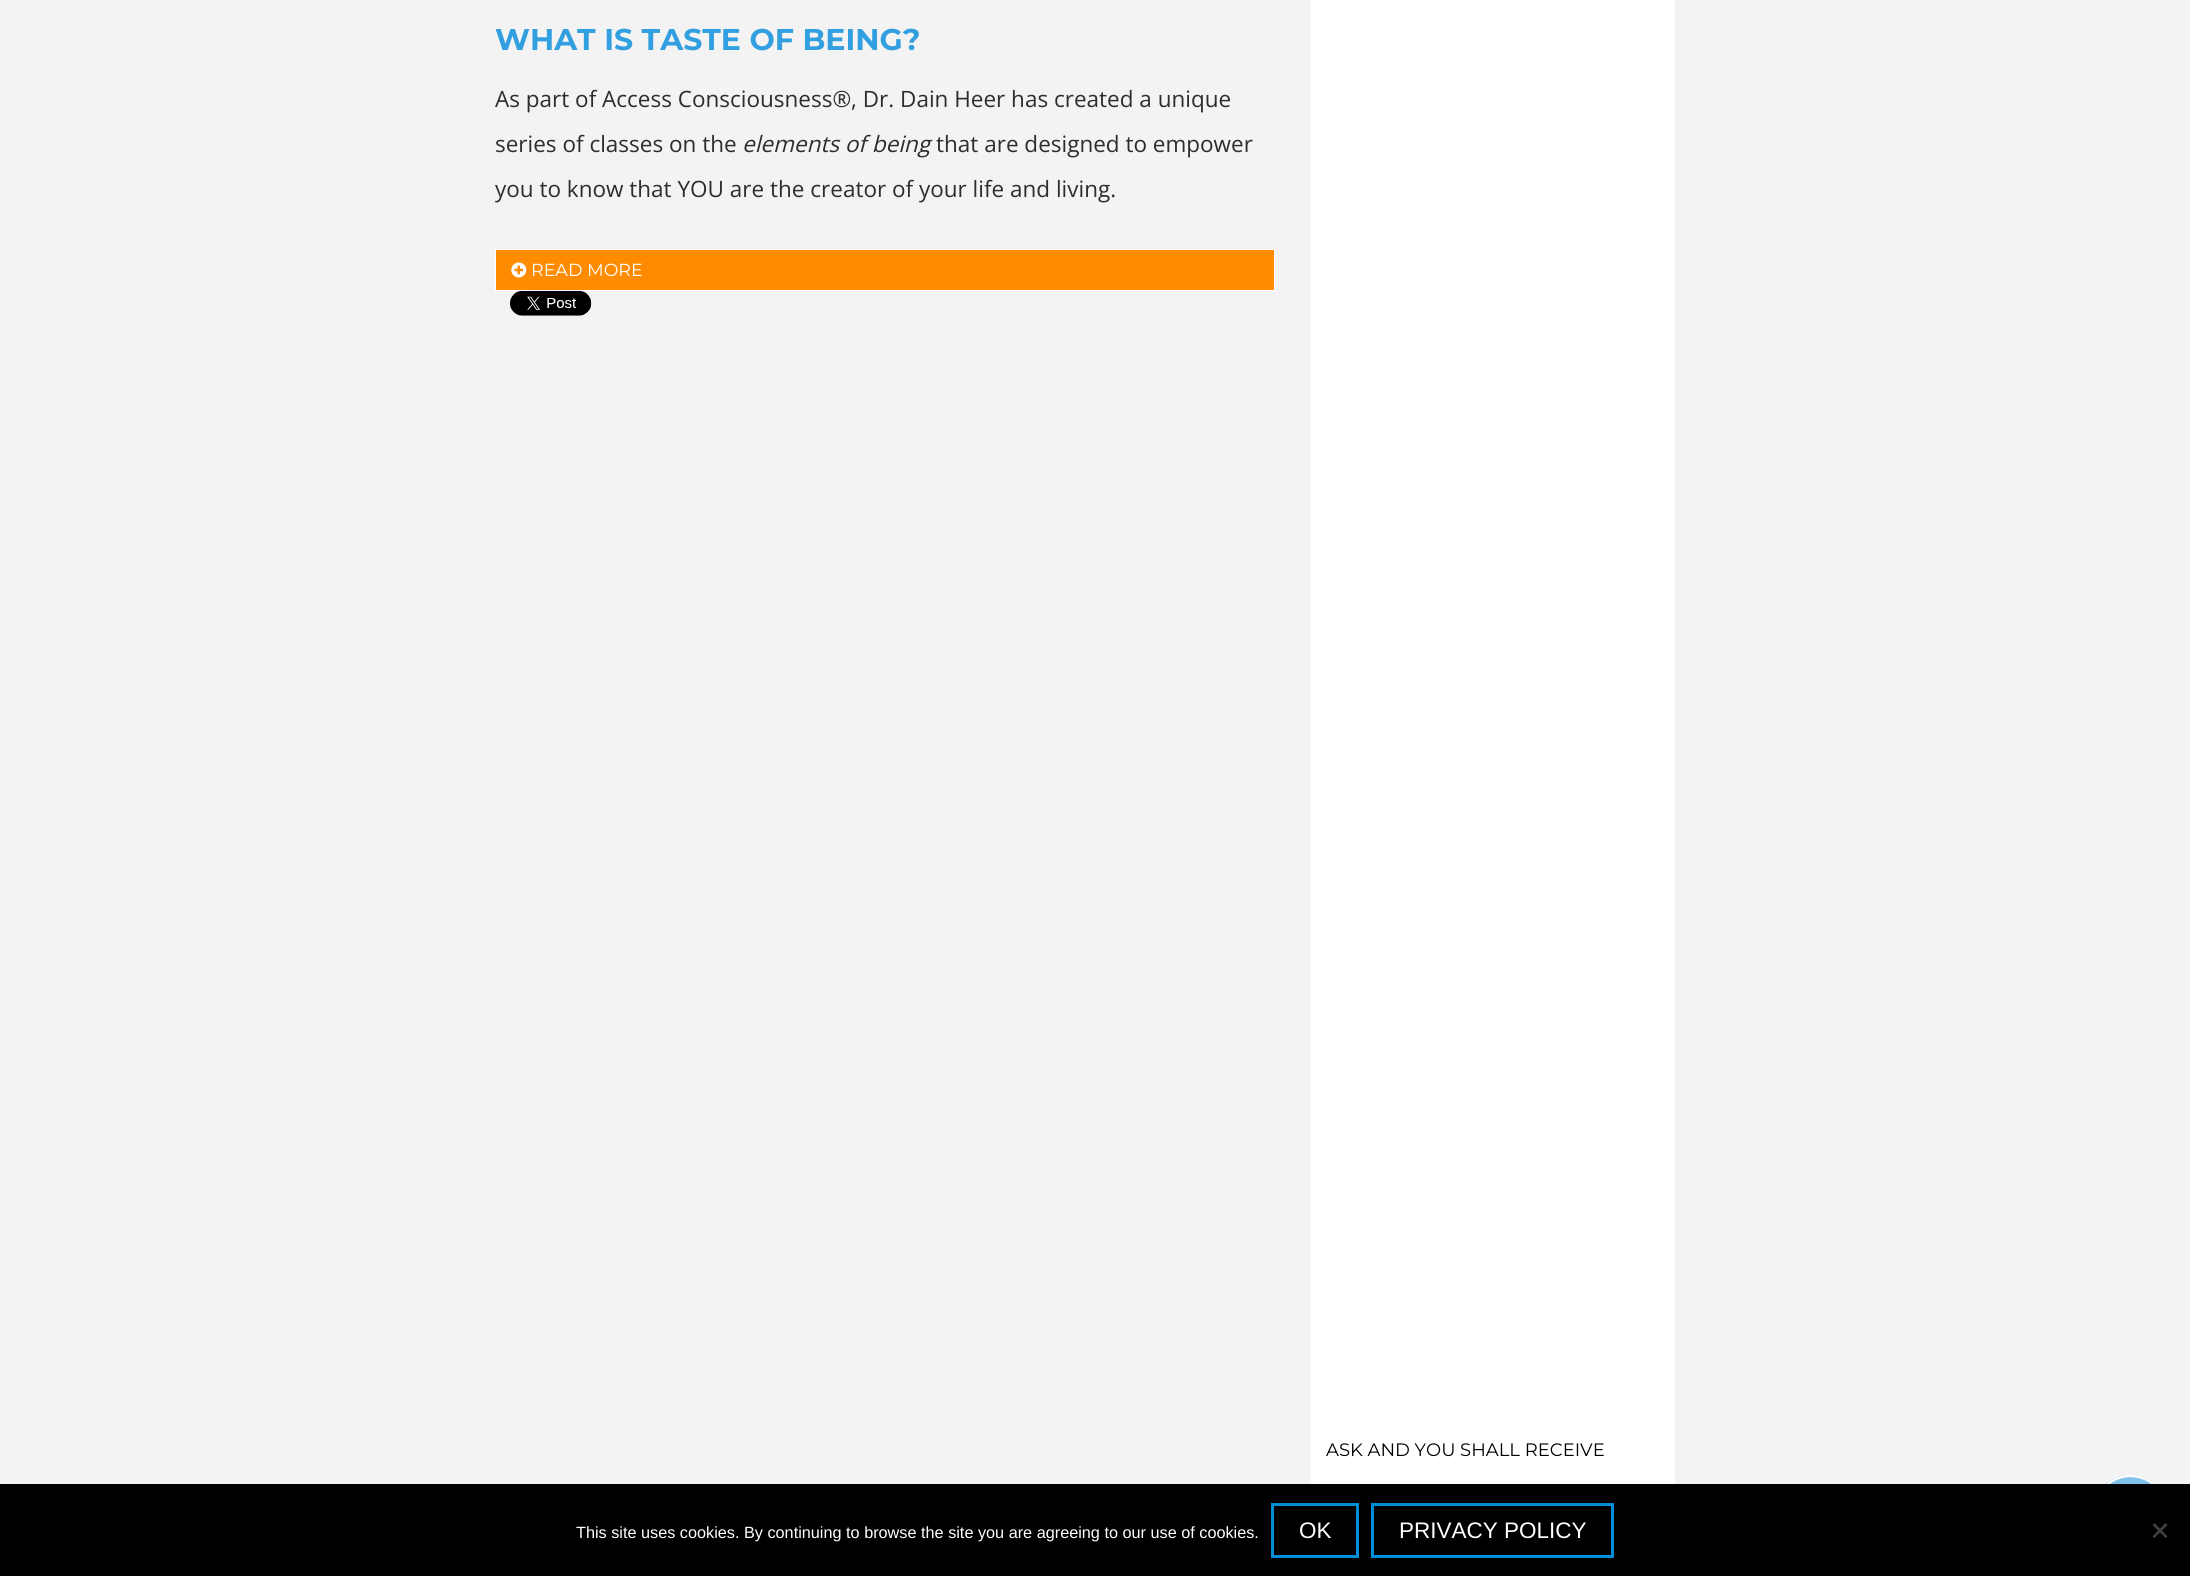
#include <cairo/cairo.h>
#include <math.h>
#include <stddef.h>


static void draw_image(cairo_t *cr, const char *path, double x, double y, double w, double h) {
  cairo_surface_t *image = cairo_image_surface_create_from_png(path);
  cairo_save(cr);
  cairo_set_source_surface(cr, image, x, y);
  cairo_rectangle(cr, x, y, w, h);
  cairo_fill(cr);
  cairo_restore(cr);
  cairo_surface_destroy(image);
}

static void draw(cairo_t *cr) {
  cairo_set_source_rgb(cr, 243 / 255.0, 243 / 255.0, 243 / 255.0);
  cairo_paint(cr);
  cairo_set_source_rgb(cr, 1, 140 / 255.0, 0);
  cairo_rectangle(cr, 495.5, 249.5, 779, 41);
  cairo_fill_preserve(cr);
  cairo_set_source_rgb(cr, 1, 1, 1);
  cairo_set_line_width(cr, 1);
  cairo_stroke(cr);
  draw_image(cr, "images/1.png", 511, 262, 16, 16);
  draw_image(cr, "images/2.png", 510, 290, 82, 26);
  cairo_rectangle(cr, 1311, 0, 364, 1484);
  cairo_fill(cr);
  cairo_set_source_rgb(cr, 127 / 255.0, 193 / 255.0, 232 / 255.0);
  cairo_new_path(cr);
  cairo_move_to(cr, 2130.5, 1475);
  cairo_curve_to(cr, 2152.5, 1475, 2170, 1493, 2170, 1515.5);
  cairo_curve_to(cr, 2170, 1538, 2152.5, 1556, 2130.5, 1556);
  cairo_curve_to(cr, 2108.5, 1556, 2091, 1538, 2091, 1515.5);
  cairo_curve_to(cr, 2091, 1493, 2108.5, 1475, 2130.5, 1475);
  cairo_close_path(cr);
  cairo_fill(cr);
  cairo_new_path(cr);
  cairo_move_to(cr, 2130.5, 1476);
  cairo_curve_to(cr, 2151.5, 1476, 2169, 1494, 2169, 1515.5);
  cairo_curve_to(cr, 2169, 1537.5, 2151.5, 1555, 2130.5, 1555);
  cairo_curve_to(cr, 2109.5, 1555, 2092.5, 1537.5, 2092.5, 1515.5);
  cairo_curve_to(cr, 2092.5, 1494, 2109.5, 1476, 2130.5, 1476);
  cairo_close_path(cr);
  cairo_set_source_rgb(cr, 250 / 255.0, 250 / 255.0, 250 / 255.0);
  cairo_set_line_width(cr, 2.5);
  cairo_stroke(cr);
  cairo_set_source_rgb(cr, 0, 0, 0);
  cairo_rectangle(cr, 0, 1484, 2190, 92);
  cairo_fill(cr);
  cairo_rectangle(cr, 1272.5, 1504.5, 85, 52);
  cairo_set_source_rgb(cr, 0, 142 / 255.0, 214 / 255.0);
  cairo_set_line_width(cr, 3);
  cairo_stroke(cr);
  cairo_rectangle(cr, 1372.5, 1504.5, 240, 52);
  cairo_stroke(cr);
  cairo_set_source_rgb(cr, 64 / 255.0, 64 / 255.0, 64 / 255.0);
  cairo_new_path(cr);
  cairo_move_to(cr, 2165.5, 1523);
  cairo_line_to(cr, 2167.5, 1525);
  cairo_line_to(cr, 2154.5, 1538);
  cairo_line_to(cr, 2152.5, 1536.5);
  cairo_close_path(cr);
  cairo_fill(cr);
  cairo_new_path(cr);
  cairo_move_to(cr, 2152.5, 1525);
  cairo_line_to(cr, 2154.5, 1523);
  cairo_line_to(cr, 2167.5, 1536.5);
  cairo_line_to(cr, 2165.5, 1538);
  cairo_close_path(cr);
  cairo_fill(cr);
  cairo_select_font_face(cr, "Montserrat", CAIRO_FONT_SLANT_NORMAL, CAIRO_FONT_WEIGHT_BOLD);
  cairo_set_font_size(cr, 30);
  cairo_set_source_rgb(cr, 49 / 255.0, 159 / 255.0, 224 / 255.0);
  cairo_move_to(cr, 495, 50);
  cairo_show_text(cr, "WHAT IS TASTE OF BEING?");
  cairo_select_font_face(cr, "Open Sans", CAIRO_FONT_SLANT_NORMAL, CAIRO_FONT_WEIGHT_NORMAL);
  cairo_set_font_size(cr, 22.5);
  cairo_set_source_rgb(cr, 45 / 255.0, 45 / 255.0, 45 / 255.0);
  cairo_move_to(cr, 495, 107);
  cairo_show_text(cr, "As part of Access Consciousness®, Dr. Dain Heer has created a unique");
  cairo_move_to(cr, 495, 152);
  cairo_show_text(cr, "series of classes on the");
  cairo_select_font_face(cr, "Open Sans", CAIRO_FONT_SLANT_ITALIC, CAIRO_FONT_WEIGHT_NORMAL);
  cairo_move_to(cr, 742, 152);
  cairo_show_text(cr, "elements of being");
  cairo_select_font_face(cr, "Open Sans", CAIRO_FONT_SLANT_NORMAL, CAIRO_FONT_WEIGHT_NORMAL);
  cairo_move_to(cr, 936, 152);
  cairo_show_text(cr, "that are designed to empower");
  cairo_move_to(cr, 495, 197);
  cairo_show_text(cr, "you to know that YOU are the creator of your life and living.");
  cairo_select_font_face(cr, "Montserrat", CAIRO_FONT_SLANT_NORMAL, CAIRO_FONT_WEIGHT_NORMAL);
  cairo_set_font_size(cr, 17.5);
  cairo_set_source_rgb(cr, 1, 1, 1);
  cairo_move_to(cr, 531, 276);
  cairo_show_text(cr, "READ MORE");
  cairo_set_font_size(cr, 18);
  cairo_set_source_rgb(cr, 0, 0, 0);
  cairo_move_to(cr, 1326, 1456);
  cairo_show_text(cr, "ASK AND YOU SHALL RECEIVE");
  cairo_select_font_face(cr, "Liberation Sans", CAIRO_FONT_SLANT_NORMAL, CAIRO_FONT_WEIGHT_NORMAL);
  cairo_set_font_size(cr, 16.25);
  cairo_set_source_rgb(cr, 1, 1, 1);
  cairo_move_to(cr, 576, 1538);
  cairo_show_text(cr, "This site uses cookies. By continuing to browse the site you are agreeing to our use of cookies.");
  cairo_set_font_size(cr, 22.5);
  cairo_move_to(cr, 1299, 1538);
  cairo_show_text(cr, "OK");
  cairo_move_to(cr, 1399, 1538);
  cairo_show_text(cr, "PRIVACY POLICY");
}

int main(void) {
  cairo_surface_t *surface = cairo_image_surface_create(CAIRO_FORMAT_RGB24, 2190, 1576);
  cairo_t *cr = cairo_create(surface);
  cairo_font_options_t *options = cairo_font_options_create();
  cairo_font_options_set_hint_metrics(options, CAIRO_HINT_METRICS_OFF);
  cairo_font_options_set_hint_style(options, CAIRO_HINT_STYLE_NONE);
  cairo_set_font_options(cr, options);
  cairo_set_miter_limit(cr, 4);
  draw(cr);
  cairo_surface_write_to_png(surface, "out.png");
  cairo_font_options_destroy(options);
  cairo_destroy(cr);
  cairo_surface_destroy(surface);
  return 0;
}
